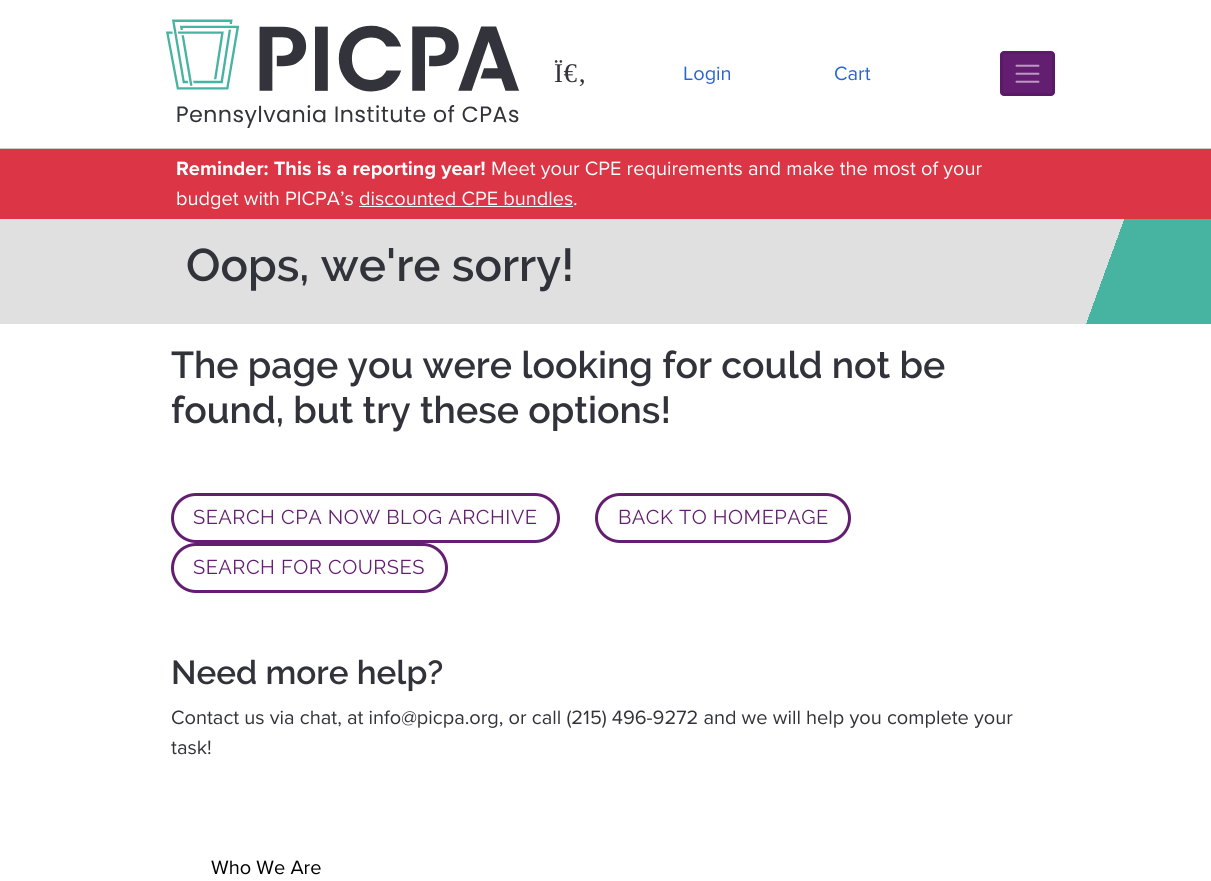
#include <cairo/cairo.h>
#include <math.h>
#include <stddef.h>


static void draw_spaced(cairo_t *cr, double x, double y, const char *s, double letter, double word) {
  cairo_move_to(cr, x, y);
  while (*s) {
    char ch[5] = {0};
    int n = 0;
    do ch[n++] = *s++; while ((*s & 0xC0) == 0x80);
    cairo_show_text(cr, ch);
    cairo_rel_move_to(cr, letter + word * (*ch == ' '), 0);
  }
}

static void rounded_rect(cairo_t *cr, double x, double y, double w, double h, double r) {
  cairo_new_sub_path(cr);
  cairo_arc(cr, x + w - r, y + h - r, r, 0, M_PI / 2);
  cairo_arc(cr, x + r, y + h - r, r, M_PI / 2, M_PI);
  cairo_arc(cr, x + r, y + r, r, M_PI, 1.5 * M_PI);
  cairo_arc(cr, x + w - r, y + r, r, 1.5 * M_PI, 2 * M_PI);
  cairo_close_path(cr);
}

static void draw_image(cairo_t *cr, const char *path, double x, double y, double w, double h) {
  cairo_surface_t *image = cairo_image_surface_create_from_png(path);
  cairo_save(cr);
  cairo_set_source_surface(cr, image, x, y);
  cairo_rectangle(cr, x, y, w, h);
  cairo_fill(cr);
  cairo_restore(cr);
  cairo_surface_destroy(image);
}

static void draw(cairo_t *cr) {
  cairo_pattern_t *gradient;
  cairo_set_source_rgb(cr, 1, 1, 1);
  cairo_paint(cr);
  cairo_set_source_rgb(cr, 204 / 255.0, 204 / 255.0, 204 / 255.0);
  cairo_rectangle(cr, 0, 148, 1211, 1);
  cairo_fill(cr);
  draw_image(cr, "images/1.png", 166, 19, 353, 109);
  cairo_set_source_rgb(cr, 99 / 255.0, 30 / 255.0, 113 / 255.0);
  rounded_rect(cr, 1000, 51, 55, 45, 4);
  cairo_fill(cr);
  rounded_rect(cr, 1001.5, 52.5, 52, 42, 2.5);
  cairo_set_source_rgba(cr, 0, 0, 0, 0.1);
  cairo_set_line_width(cr, 3);
  cairo_stroke(cr);
  draw_image(cr, "images/2.png", 1015, 64, 25, 19);
  cairo_set_source_rgb(cr, 220 / 255.0, 53 / 255.0, 69 / 255.0);
  cairo_rectangle(cr, 0, 149, 1211, 70);
  cairo_fill(cr);
  cairo_set_source_rgb(cr, 248 / 255.0, 249 / 255.0, 250 / 255.0);
  cairo_rectangle(cr, 359, 206, 214, 1);
  cairo_fill(cr);
  gradient = cairo_pattern_create_linear(54, 70, 1157, 472);
  cairo_pattern_add_color_stop_rgba(gradient, 0.9, 224 / 255.0, 224 / 255.0, 224 / 255.0, 1);
  cairo_pattern_add_color_stop_rgba(gradient, 0.9, 71 / 255.0, 180 / 255.0, 161 / 255.0, 1);
  cairo_set_source(cr, gradient);
  cairo_pattern_destroy(gradient);
  cairo_rectangle(cr, 0, 219, 1211, 105);
  cairo_fill(cr);
  rounded_rect(cr, 172.5, 494.5, 386, 47, 23.5);
  cairo_set_source_rgb(cr, 99 / 255.0, 30 / 255.0, 113 / 255.0);
  cairo_stroke(cr);
  rounded_rect(cr, 596.5, 494.5, 253, 47, 23.5);
  cairo_stroke(cr);
  rounded_rect(cr, 172.5, 544.5, 274, 47, 23.5);
  cairo_stroke(cr);
  cairo_select_font_face(cr, "Liberation Serif", CAIRO_FONT_SLANT_NORMAL, CAIRO_FONT_WEIGHT_NORMAL);
  cairo_set_font_size(cr, 27);
  cairo_set_source_rgb(cr, 50 / 255.0, 51 / 255.0, 58 / 255.0);
  draw_spaced(cr, 554, 82, "Ï€‚", 0.5, 0);
  cairo_select_font_face(cr, "Proxima Nova", CAIRO_FONT_SLANT_NORMAL, CAIRO_FONT_WEIGHT_NORMAL);
  cairo_set_font_size(cr, 20);
  cairo_set_source_rgb(cr, 39 / 255.0, 101 / 255.0, 213 / 255.0);
  cairo_move_to(cr, 683, 80);
  cairo_show_text(cr, "Login");
  cairo_move_to(cr, 834, 80);
  cairo_show_text(cr, "Cart");
  cairo_select_font_face(cr, "Proxima Nova", CAIRO_FONT_SLANT_NORMAL, CAIRO_FONT_WEIGHT_BOLD);
  cairo_set_source_rgb(cr, 1, 1, 1);
  cairo_move_to(cr, 176, 175);
  cairo_show_text(cr, "Reminder: This is a reporting year!");
  cairo_select_font_face(cr, "Proxima Nova", CAIRO_FONT_SLANT_NORMAL, CAIRO_FONT_WEIGHT_NORMAL);
  cairo_move_to(cr, 491, 175);
  cairo_show_text(cr, "Meet your CPE requirements and make the most of your");
  cairo_move_to(cr, 176, 205);
  cairo_show_text(cr, "budget with PICPA’s");
  cairo_set_source_rgb(cr, 248 / 255.0, 249 / 255.0, 250 / 255.0);
  cairo_move_to(cr, 359, 205);
  cairo_show_text(cr, "discounted CPE bundles");
  cairo_set_source_rgb(cr, 1, 1, 1);
  cairo_move_to(cr, 573, 205);
  cairo_show_text(cr, ".");
  cairo_select_font_face(cr, "Raleway SemiBold", CAIRO_FONT_SLANT_NORMAL, CAIRO_FONT_WEIGHT_NORMAL);
  cairo_set_font_size(cr, 45.75);
  cairo_set_source_rgb(cr, 50 / 255.0, 51 / 255.0, 58 / 255.0);
  cairo_move_to(cr, 186, 281);
  cairo_show_text(cr, "Oops, we're sorry!");
  cairo_set_font_size(cr, 37.4);
  cairo_move_to(cr, 171, 378);
  cairo_show_text(cr, "The page you were looking for could not be");
  cairo_move_to(cr, 171, 423);
  cairo_show_text(cr, "found, but try these options!");
  cairo_select_font_face(cr, "Raleway", CAIRO_FONT_SLANT_NORMAL, CAIRO_FONT_WEIGHT_NORMAL);
  cairo_set_font_size(cr, 20);
  cairo_set_source_rgb(cr, 99 / 255.0, 30 / 255.0, 113 / 255.0);
  draw_spaced(cr, 193, 524, "SEARCH CPA NOW BLOG ARCHIVE", 0.5, 0);
  draw_spaced(cr, 618, 524, "BACK TO HOMEPAGE", 0.5, 0);
  draw_spaced(cr, 193, 574, "SEARCH FOR COURSES", 0.5, 0);
  cairo_select_font_face(cr, "Raleway SemiBold", CAIRO_FONT_SLANT_NORMAL, CAIRO_FONT_WEIGHT_NORMAL);
  cairo_set_font_size(cr, 33.25);
  cairo_set_source_rgb(cr, 50 / 255.0, 51 / 255.0, 58 / 255.0);
  cairo_move_to(cr, 171, 684);
  cairo_show_text(cr, "Need more help?");
  cairo_select_font_face(cr, "Proxima Nova", CAIRO_FONT_SLANT_NORMAL, CAIRO_FONT_WEIGHT_NORMAL);
  cairo_set_font_size(cr, 20);
  cairo_move_to(cr, 171, 724);
  cairo_show_text(cr, "Contact us via chat, at info@picpa.org, or call (215) 496-9272 and we will help you complete your");
  cairo_move_to(cr, 171, 754);
  cairo_show_text(cr, "task!");
  cairo_set_source_rgb(cr, 0, 0, 0);
  cairo_move_to(cr, 211, 874);
  cairo_show_text(cr, "Who We Are");
}

int main(void) {
  cairo_surface_t *surface = cairo_image_surface_create(CAIRO_FORMAT_RGB24, 1211, 881);
  cairo_t *cr = cairo_create(surface);
  cairo_font_options_t *options = cairo_font_options_create();
  cairo_font_options_set_hint_metrics(options, CAIRO_HINT_METRICS_OFF);
  cairo_font_options_set_hint_style(options, CAIRO_HINT_STYLE_NONE);
  cairo_set_font_options(cr, options);
  cairo_set_miter_limit(cr, 4);
  draw(cr);
  cairo_surface_write_to_png(surface, "out.png");
  cairo_font_options_destroy(options);
  cairo_destroy(cr);
  cairo_surface_destroy(surface);
  return 0;
}
